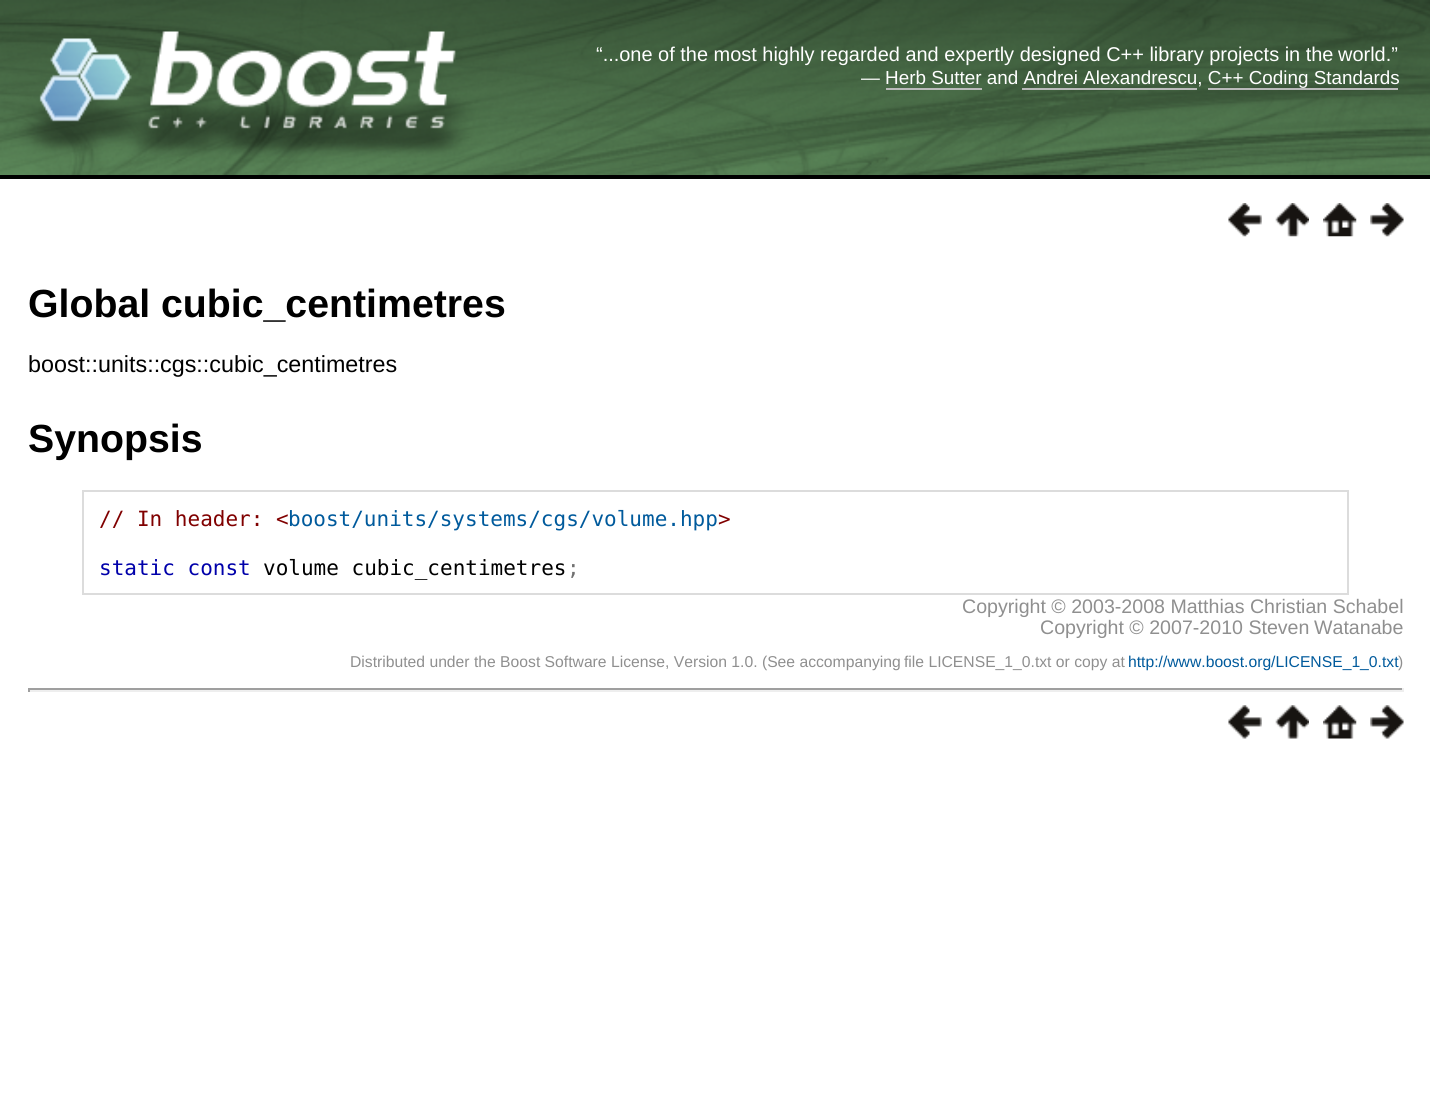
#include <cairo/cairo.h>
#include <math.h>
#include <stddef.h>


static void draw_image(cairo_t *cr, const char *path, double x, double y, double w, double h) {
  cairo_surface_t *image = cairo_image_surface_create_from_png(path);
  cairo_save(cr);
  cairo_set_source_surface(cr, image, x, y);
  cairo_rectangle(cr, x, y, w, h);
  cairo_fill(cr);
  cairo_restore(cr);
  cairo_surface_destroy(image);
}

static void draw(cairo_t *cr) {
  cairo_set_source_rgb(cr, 1, 1, 1);
  cairo_paint(cr);
  cairo_set_source_rgb(cr, 0, 0, 0);
  cairo_rectangle(cr, 0, 175, 1430, 4);
  cairo_fill(cr);
  draw_image(cr, "images/1.png", 0, 0, 1430, 175);
  cairo_set_source_rgb(cr, 187 / 255.0, 187 / 255.0, 187 / 255.0);
  cairo_rectangle(cr, 886, 88, 96, 2);
  cairo_fill(cr);
  cairo_rectangle(cr, 1022, 88, 175, 2);
  cairo_fill(cr);
  cairo_rectangle(cr, 1208, 88, 190, 2);
  cairo_fill(cr);
  draw_image(cr, "images/2.png", 1228, 203, 34, 34);
  draw_image(cr, "images/3.png", 1275, 203, 34, 34);
  draw_image(cr, "images/4.png", 1323, 203, 34, 34);
  draw_image(cr, "images/5.png", 1370, 203, 34, 34);
  cairo_rectangle(cr, 83, 491, 1265, 103);
  cairo_set_source_rgb(cr, 220 / 255.0, 220 / 255.0, 220 / 255.0);
  cairo_stroke(cr);
  cairo_set_source_rgb(cr, 159 / 255.0, 159 / 255.0, 159 / 255.0);
  cairo_rectangle(cr, 28, 688, 1376, 2);
  cairo_fill(cr);
  cairo_set_source_rgb(cr, 238 / 255.0, 238 / 255.0, 238 / 255.0);
  cairo_rectangle(cr, 1402, 688, 2, 4);
  cairo_fill(cr);
  cairo_rectangle(cr, 28, 690, 1376, 2);
  cairo_fill(cr);
  cairo_set_source_rgb(cr, 159 / 255.0, 159 / 255.0, 159 / 255.0);
  cairo_rectangle(cr, 28, 688, 2, 4);
  cairo_fill(cr);
  draw_image(cr, "images/6.png", 1228, 705, 34, 34);
  draw_image(cr, "images/7.png", 1275, 705, 34, 34);
  draw_image(cr, "images/8.png", 1323, 705, 34, 34);
  draw_image(cr, "images/9.png", 1370, 705, 34, 34);
  cairo_select_font_face(cr, "Liberation Sans", CAIRO_FONT_SLANT_NORMAL, CAIRO_FONT_WEIGHT_NORMAL);
  cairo_set_font_size(cr, 19.95);
  cairo_set_source_rgb(cr, 1, 1, 1);
  cairo_move_to(cr, 596, 61);
  cairo_show_text(cr, "“...one of the most highly regarded and expertly designed C++ library projects in the");
  cairo_move_to(cr, 1338, 61);
  cairo_show_text(cr, "world.”");
  cairo_set_font_size(cr, 18.85);
  cairo_move_to(cr, 861, 84);
  cairo_show_text(cr, "— Herb Sutter and Andrei Alexandrescu, C++ Coding Standards");
  cairo_select_font_face(cr, "Liberation Sans", CAIRO_FONT_SLANT_NORMAL, CAIRO_FONT_WEIGHT_BOLD);
  cairo_set_font_size(cr, 39.25);
  cairo_set_source_rgb(cr, 0, 0, 0);
  cairo_move_to(cr, 28, 317);
  cairo_show_text(cr, "Global cubic_centimetres");
  cairo_select_font_face(cr, "Liberation Sans", CAIRO_FONT_SLANT_NORMAL, CAIRO_FONT_WEIGHT_NORMAL);
  cairo_set_font_size(cr, 23.3);
  cairo_move_to(cr, 28, 372);
  cairo_show_text(cr, "boost::units::cgs::cubic_centimetres");
  cairo_select_font_face(cr, "Liberation Sans", CAIRO_FONT_SLANT_NORMAL, CAIRO_FONT_WEIGHT_BOLD);
  cairo_set_font_size(cr, 39.25);
  cairo_move_to(cr, 28, 452);
  cairo_show_text(cr, "Synopsis");
  cairo_select_font_face(cr, "DejaVu Sans Mono", CAIRO_FONT_SLANT_NORMAL, CAIRO_FONT_WEIGHT_NORMAL);
  cairo_set_font_size(cr, 21);
  cairo_set_source_rgb(cr, 128 / 255.0, 0, 0);
  cairo_move_to(cr, 99, 526);
  cairo_show_text(cr, "// In header: <");
  cairo_set_source_rgb(cr, 0, 90 / 255.0, 156 / 255.0);
  cairo_move_to(cr, 288, 526);
  cairo_show_text(cr, "boost/units/systems/cgs/volume.hpp");
  cairo_set_source_rgb(cr, 128 / 255.0, 0, 0);
  cairo_move_to(cr, 718, 526);
  cairo_show_text(cr, ">");
  cairo_set_source_rgb(cr, 0, 0, 170 / 255.0);
  cairo_move_to(cr, 99, 575);
  cairo_show_text(cr, "static const");
  cairo_set_source_rgb(cr, 0, 0, 0);
  cairo_move_to(cr, 263, 575);
  cairo_show_text(cr, "volume cubic_centimetres");
  cairo_set_source_rgb(cr, 112 / 255.0, 112 / 255.0, 112 / 255.0);
  cairo_move_to(cr, 567, 575);
  cairo_show_text(cr, ";");
  cairo_select_font_face(cr, "Liberation Sans", CAIRO_FONT_SLANT_NORMAL, CAIRO_FONT_WEIGHT_NORMAL);
  cairo_set_font_size(cr, 19.6);
  cairo_set_source_rgb(cr, 143 / 255.0, 143 / 255.0, 143 / 255.0);
  cairo_move_to(cr, 962, 613);
  cairo_show_text(cr, "Copyright © 2003-2008 Matthias Christian Schabel");
  cairo_move_to(cr, 1040, 634);
  cairo_show_text(cr, "Copyright © 2007-2010 Steven");
  cairo_move_to(cr, 1314, 634);
  cairo_show_text(cr, "Watanabe");
  cairo_set_font_size(cr, 15.7);
  cairo_move_to(cr, 350, 667);
  cairo_show_text(cr, "Distributed under the Boost Software License, Version 1.0. (See accompanying");
  cairo_move_to(cr, 904, 667);
  cairo_show_text(cr, "file LICENSE_1_0.txt or copy at");
  cairo_set_source_rgb(cr, 0, 90 / 255.0, 156 / 255.0);
  cairo_move_to(cr, 1128, 667);
  cairo_show_text(cr, "http://www.boost.org/LICENSE_1_0.txt");
  cairo_set_source_rgb(cr, 143 / 255.0, 143 / 255.0, 143 / 255.0);
  cairo_move_to(cr, 1398, 667);
  cairo_show_text(cr, ")");
}

int main(void) {
  cairo_surface_t *surface = cairo_image_surface_create(CAIRO_FORMAT_RGB24, 1430, 1106);
  cairo_t *cr = cairo_create(surface);
  cairo_font_options_t *options = cairo_font_options_create();
  cairo_font_options_set_hint_metrics(options, CAIRO_HINT_METRICS_OFF);
  cairo_font_options_set_hint_style(options, CAIRO_HINT_STYLE_NONE);
  cairo_set_font_options(cr, options);
  cairo_set_miter_limit(cr, 4);
  draw(cr);
  cairo_surface_write_to_png(surface, "out.png");
  cairo_font_options_destroy(options);
  cairo_destroy(cr);
  cairo_surface_destroy(surface);
  return 0;
}
